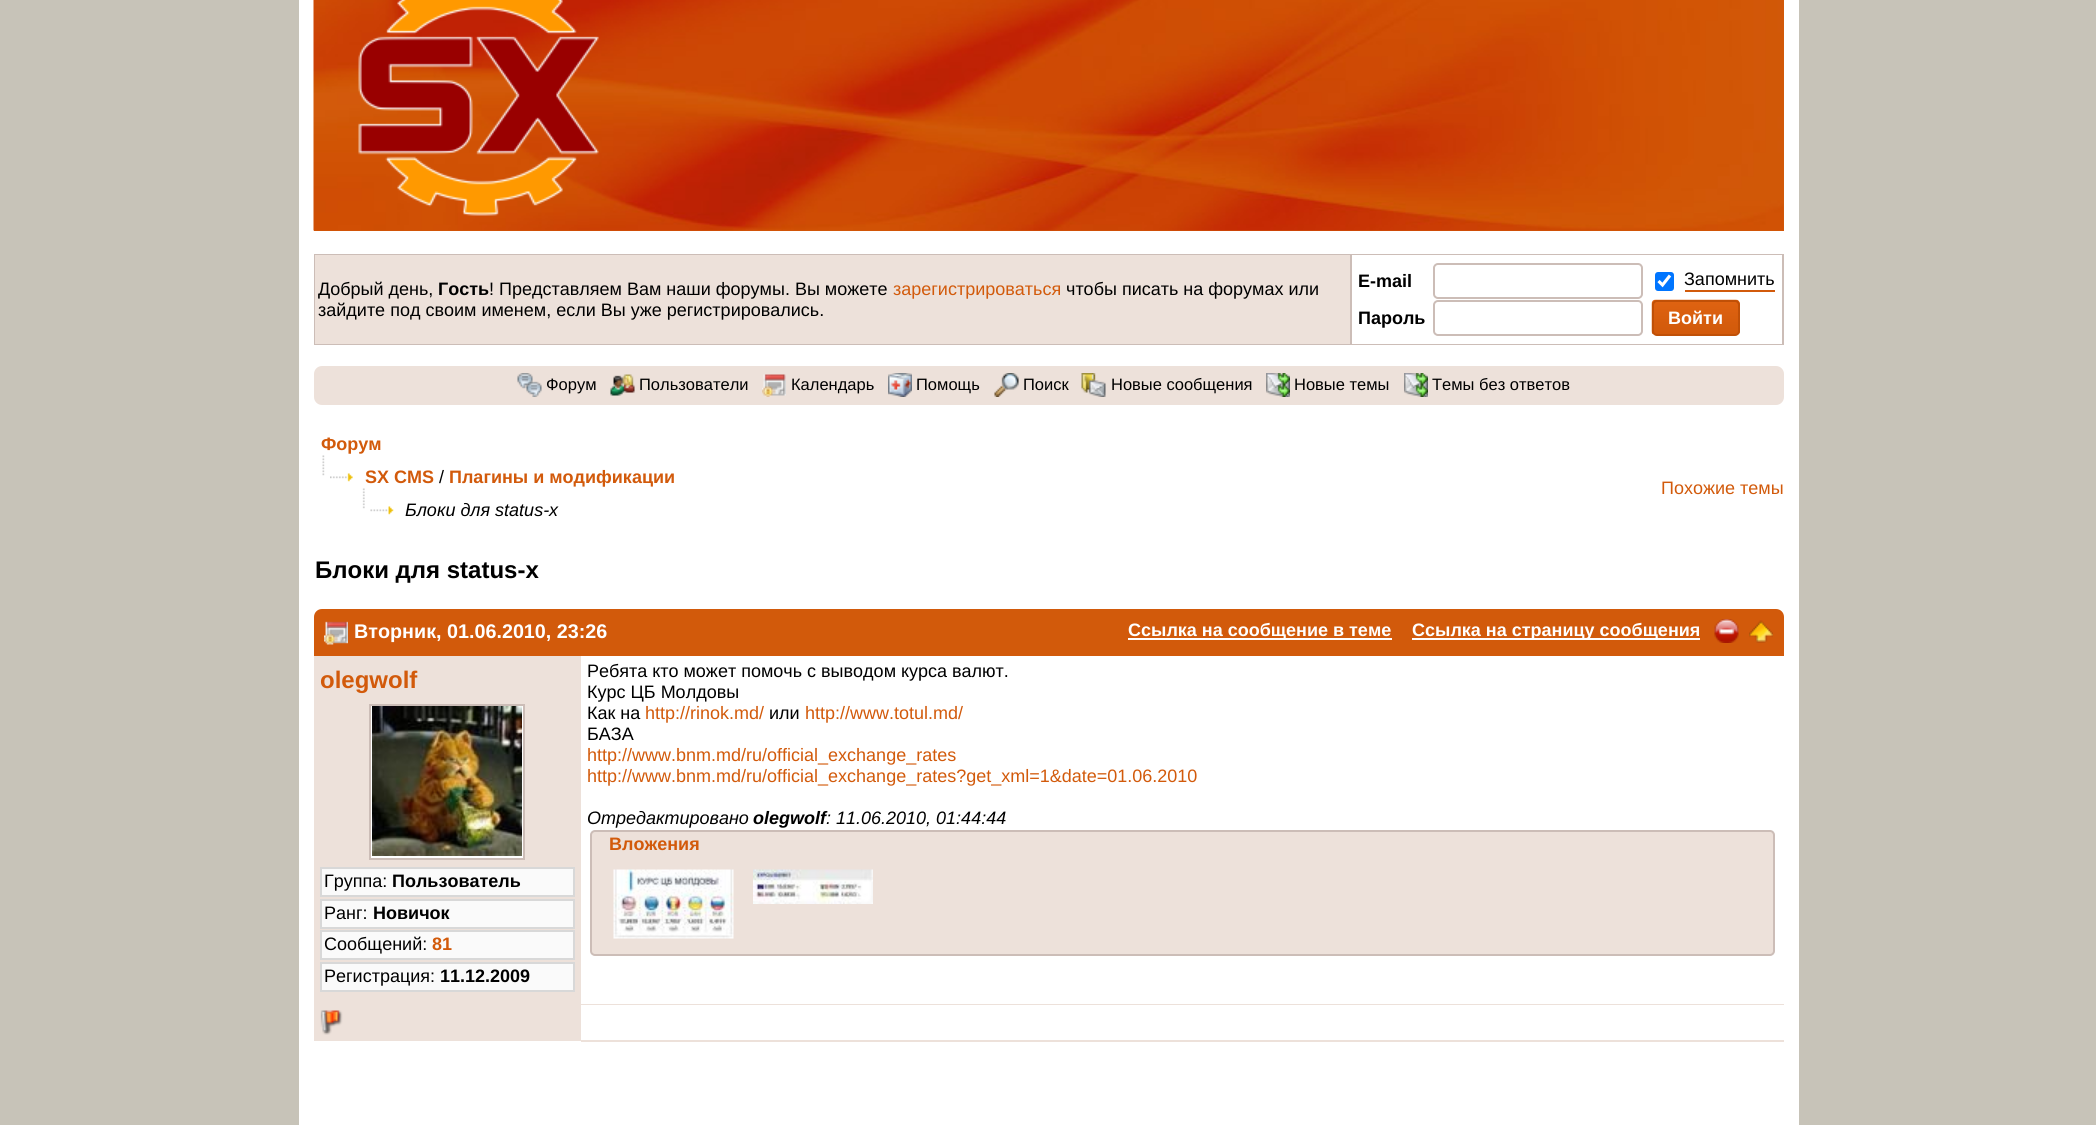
#include <cairo/cairo.h>
#include <math.h>
#include <stddef.h>


static void rounded_rect(cairo_t *cr, double x, double y, double w, double h, double r) {
  cairo_new_sub_path(cr);
  cairo_arc(cr, x + w - r, y + h - r, r, 0, M_PI / 2);
  cairo_arc(cr, x + r, y + h - r, r, M_PI / 2, M_PI);
  cairo_arc(cr, x + r, y + r, r, M_PI, 1.5 * M_PI);
  cairo_arc(cr, x + w - r, y + r, r, 1.5 * M_PI, 2 * M_PI);
  cairo_close_path(cr);
}

static void draw_image(cairo_t *cr, const char *path, double x, double y, double w, double h) {
  cairo_surface_t *image = cairo_image_surface_create_from_png(path);
  cairo_save(cr);
  cairo_set_source_surface(cr, image, x, y);
  cairo_rectangle(cr, x, y, w, h);
  cairo_fill(cr);
  cairo_restore(cr);
  cairo_surface_destroy(image);
}

static void draw(cairo_t *cr) {
  cairo_set_source_rgb(cr, 199 / 255.0, 195 / 255.0, 184 / 255.0);
  cairo_paint(cr);
  cairo_set_source_rgb(cr, 1, 1, 1);
  cairo_rectangle(cr, 299, 0, 1500, 1125);
  cairo_fill(cr);
  cairo_set_source_rgb(cr, 210 / 255.0, 90 / 255.0, 11 / 255.0);
  cairo_rectangle(cr, 314, 0, 1470, 231);
  cairo_fill(cr);
  draw_image(cr, "images/1.png", 313, 0, 1471, 231);
  draw_image(cr, "images/2.png", 358, 0, 241, 216);
  cairo_set_source_rgb(cr, 204 / 255.0, 189 / 255.0, 183 / 255.0);
  cairo_rectangle(cr, 314, 254, 1470, 91);
  cairo_fill(cr);
  cairo_set_source_rgb(cr, 237 / 255.0, 225 / 255.0, 218 / 255.0);
  cairo_rectangle(cr, 315, 255, 1035, 89);
  cairo_fill(cr);
  cairo_set_source_rgb(cr, 1, 1, 1);
  cairo_rectangle(cr, 1352, 255, 430, 89);
  cairo_fill(cr);
  rounded_rect(cr, 1434, 264, 208, 34, 4);
  cairo_set_source_rgb(cr, 204 / 255.0, 189 / 255.0, 183 / 255.0);
  cairo_stroke(cr);
  cairo_set_source_rgb(cr, 0, 117 / 255.0, 1);
  rounded_rect(cr, 1655, 272, 19, 19, 3);
  cairo_fill(cr);
  cairo_new_path(cr);
  cairo_move_to(cr, 1658.5, 281);
  cairo_line_to(cr, 1662.5, 285);
  cairo_line_to(cr, 1670, 275.5);
  cairo_set_source_rgb(cr, 1, 1, 1);
  cairo_set_line_width(cr, 3.1);
  cairo_stroke(cr);
  cairo_set_source_rgb(cr, 210 / 255.0, 90 / 255.0, 11 / 255.0);
  cairo_rectangle(cr, 1685, 290, 90, 2);
  cairo_fill(cr);
  rounded_rect(cr, 1434, 301, 208, 34, 4);
  cairo_set_source_rgb(cr, 204 / 255.0, 189 / 255.0, 183 / 255.0);
  cairo_set_line_width(cr, 2);
  cairo_stroke(cr);
  draw_image(cr, "images/3.png", 1651, 299, 89, 35);
  rounded_rect(cr, 1653, 301, 86, 34, 4);
  cairo_set_source_rgb(cr, 192 / 255.0, 80 / 255.0, 7 / 255.0);
  cairo_stroke(cr);
  cairo_set_source_rgb(cr, 237 / 255.0, 225 / 255.0, 218 / 255.0);
  rounded_rect(cr, 314, 366, 1470, 39, 8);
  cairo_fill(cr);
  draw_image(cr, "images/4.png", 517, 373, 25, 24);
  draw_image(cr, "images/5.png", 610, 374, 25, 22);
  draw_image(cr, "images/6.png", 762, 374, 24, 23);
  draw_image(cr, "images/7.png", 888, 373, 24, 24);
  draw_image(cr, "images/8.png", 994, 373, 25, 24);
  draw_image(cr, "images/9.png", 1081, 373, 25, 24);
  draw_image(cr, "images/10.png", 1266, 373, 24, 24);
  draw_image(cr, "images/11.png", 1404, 373, 24, 24);
  draw_image(cr, "images/12.png", 322, 455, 3, 21);
  draw_image(cr, "images/13.png", 330, 473, 23, 9);
  draw_image(cr, "images/14.png", 362, 488, 3, 21);
  draw_image(cr, "images/15.png", 370, 506, 24, 9);
  cairo_set_source_rgb(cr, 210 / 255.0, 90 / 255.0, 11 / 255.0);
  cairo_new_path(cr);
  cairo_move_to(cr, 322, 609);
  cairo_line_to(cr, 1776, 609);
  cairo_curve_to(cr, 1780.5, 609, 1784, 612.5, 1784, 617);
  cairo_line_to(cr, 1784, 656);
  cairo_line_to(cr, 314, 656);
  cairo_line_to(cr, 314, 617);
  cairo_curve_to(cr, 314, 612.5, 317.5, 609, 322, 609);
  cairo_close_path(cr);
  cairo_fill(cr);
  draw_image(cr, "images/16.png", 324, 621, 24, 24);
  cairo_set_source_rgb(cr, 1, 1, 1);
  cairo_rectangle(cr, 1128, 638, 264, 2);
  cairo_fill(cr);
  cairo_rectangle(cr, 1412, 638, 288, 2);
  cairo_fill(cr);
  draw_image(cr, "images/17.png", 1714, 619, 25, 24);
  draw_image(cr, "images/18.png", 1749, 620, 24, 23);
  cairo_set_source_rgb(cr, 237 / 255.0, 225 / 255.0, 218 / 255.0);
  cairo_rectangle(cr, 314, 656, 267, 385);
  cairo_fill(cr);
  cairo_set_source_rgb(cr, 1, 1, 1);
  cairo_rectangle(cr, 370, 705, 154, 154);
  cairo_fill_preserve(cr);
  cairo_set_source_rgb(cr, 204 / 255.0, 189 / 255.0, 183 / 255.0);
  cairo_stroke(cr);
  draw_image(cr, "images/19.png", 372, 706, 150, 150);
  cairo_set_source_rgb(cr, 250 / 255.0, 250 / 255.0, 250 / 255.0);
  cairo_rectangle(cr, 321, 868, 253, 28);
  cairo_fill_preserve(cr);
  cairo_set_source_rgb(cr, 216 / 255.0, 216 / 255.0, 216 / 255.0);
  cairo_stroke(cr);
  cairo_set_source_rgb(cr, 250 / 255.0, 250 / 255.0, 250 / 255.0);
  cairo_rectangle(cr, 321, 900, 253, 28);
  cairo_fill_preserve(cr);
  cairo_set_source_rgb(cr, 216 / 255.0, 216 / 255.0, 216 / 255.0);
  cairo_stroke(cr);
  cairo_set_source_rgb(cr, 250 / 255.0, 250 / 255.0, 250 / 255.0);
  cairo_rectangle(cr, 321, 931, 253, 28);
  cairo_fill_preserve(cr);
  cairo_set_source_rgb(cr, 216 / 255.0, 216 / 255.0, 216 / 255.0);
  cairo_stroke(cr);
  cairo_set_source_rgb(cr, 250 / 255.0, 250 / 255.0, 250 / 255.0);
  cairo_rectangle(cr, 321, 963, 253, 28);
  cairo_fill_preserve(cr);
  cairo_set_source_rgb(cr, 216 / 255.0, 216 / 255.0, 216 / 255.0);
  cairo_stroke(cr);
  cairo_set_source_rgb(cr, 237 / 255.0, 225 / 255.0, 218 / 255.0);
  cairo_rectangle(cr, 581, 1004, 1203, 1);
  cairo_fill(cr);
  rounded_rect(cr, 591, 831, 1183, 124, 4);
  cairo_fill_preserve(cr);
  cairo_set_source_rgb(cr, 204 / 255.0, 189 / 255.0, 183 / 255.0);
  cairo_stroke(cr);
  draw_image(cr, "images/20.png", 613, 869, 121, 70);
  draw_image(cr, "images/21.png", 753, 869, 120, 35);
  draw_image(cr, "images/22.png", 320, 1010, 23, 25);
  cairo_set_source_rgb(cr, 237 / 255.0, 225 / 255.0, 218 / 255.0);
  cairo_rectangle(cr, 581, 1040, 1203, 2);
  cairo_fill(cr);
  cairo_select_font_face(cr, "Liberation Sans", CAIRO_FONT_SLANT_NORMAL, CAIRO_FONT_WEIGHT_NORMAL);
  cairo_set_font_size(cr, 18);
  cairo_set_source_rgb(cr, 0, 0, 0);
  cairo_move_to(cr, 318, 295);
  cairo_show_text(cr, "Добрый день,");
  cairo_select_font_face(cr, "Liberation Sans", CAIRO_FONT_SLANT_NORMAL, CAIRO_FONT_WEIGHT_BOLD);
  cairo_move_to(cr, 438, 295);
  cairo_show_text(cr, "Гость");
  cairo_select_font_face(cr, "Liberation Sans", CAIRO_FONT_SLANT_NORMAL, CAIRO_FONT_WEIGHT_NORMAL);
  cairo_move_to(cr, 489, 295);
  cairo_show_text(cr, "! Представляем Вам наши форумы. Вы можете");
  cairo_set_source_rgb(cr, 210 / 255.0, 90 / 255.0, 11 / 255.0);
  cairo_move_to(cr, 893, 295);
  cairo_show_text(cr, "зарегистрироваться");
  cairo_set_source_rgb(cr, 0, 0, 0);
  cairo_move_to(cr, 1066, 295);
  cairo_show_text(cr, "чтобы писать на форумах или");
  cairo_move_to(cr, 318, 316);
  cairo_show_text(cr, "зайдите под своим именем, если Вы уже регистрировались.");
  cairo_select_font_face(cr, "Liberation Sans", CAIRO_FONT_SLANT_NORMAL, CAIRO_FONT_WEIGHT_BOLD);
  cairo_move_to(cr, 1358, 287);
  cairo_show_text(cr, "E-mail");
  cairo_select_font_face(cr, "Liberation Sans", CAIRO_FONT_SLANT_NORMAL, CAIRO_FONT_WEIGHT_NORMAL);
  cairo_move_to(cr, 1684, 285);
  cairo_show_text(cr, "Запомнить");
  cairo_select_font_face(cr, "Liberation Sans", CAIRO_FONT_SLANT_NORMAL, CAIRO_FONT_WEIGHT_BOLD);
  cairo_move_to(cr, 1358, 324);
  cairo_show_text(cr, "Пароль");
  cairo_set_source_rgb(cr, 1, 1, 1);
  cairo_move_to(cr, 1668, 324);
  cairo_show_text(cr, "Войти");
  cairo_select_font_face(cr, "Liberation Sans", CAIRO_FONT_SLANT_NORMAL, CAIRO_FONT_WEIGHT_NORMAL);
  cairo_set_font_size(cr, 16.5);
  cairo_set_source_rgb(cr, 0, 0, 0);
  cairo_move_to(cr, 546, 390);
  cairo_show_text(cr, "Форум");
  cairo_move_to(cr, 639, 390);
  cairo_show_text(cr, "Пользователи");
  cairo_move_to(cr, 791, 390);
  cairo_show_text(cr, "Календарь");
  cairo_move_to(cr, 916, 390);
  cairo_show_text(cr, "Помощь");
  cairo_move_to(cr, 1023, 390);
  cairo_show_text(cr, "Поиск");
  cairo_move_to(cr, 1111, 390);
  cairo_show_text(cr, "Новые сообщения");
  cairo_move_to(cr, 1294, 390);
  cairo_show_text(cr, "Новые темы");
  cairo_move_to(cr, 1432, 390);
  cairo_show_text(cr, "Темы без ответов");
  cairo_select_font_face(cr, "Liberation Sans", CAIRO_FONT_SLANT_NORMAL, CAIRO_FONT_WEIGHT_BOLD);
  cairo_set_font_size(cr, 18);
  cairo_set_source_rgb(cr, 210 / 255.0, 90 / 255.0, 11 / 255.0);
  cairo_move_to(cr, 321, 450);
  cairo_show_text(cr, "Форум");
  cairo_move_to(cr, 365, 483);
  cairo_show_text(cr, "SX CMS");
  cairo_select_font_face(cr, "Liberation Sans", CAIRO_FONT_SLANT_NORMAL, CAIRO_FONT_WEIGHT_NORMAL);
  cairo_set_source_rgb(cr, 0, 0, 0);
  cairo_move_to(cr, 439, 483);
  cairo_show_text(cr, "/");
  cairo_select_font_face(cr, "Liberation Sans", CAIRO_FONT_SLANT_NORMAL, CAIRO_FONT_WEIGHT_BOLD);
  cairo_set_source_rgb(cr, 210 / 255.0, 90 / 255.0, 11 / 255.0);
  cairo_move_to(cr, 449, 483);
  cairo_show_text(cr, "Плагины и модификации");
  cairo_select_font_face(cr, "Liberation Sans", CAIRO_FONT_SLANT_ITALIC, CAIRO_FONT_WEIGHT_NORMAL);
  cairo_set_source_rgb(cr, 0, 0, 0);
  cairo_move_to(cr, 405, 516);
  cairo_show_text(cr, "Блоки для status-x");
  cairo_select_font_face(cr, "Liberation Sans", CAIRO_FONT_SLANT_NORMAL, CAIRO_FONT_WEIGHT_NORMAL);
  cairo_set_source_rgb(cr, 210 / 255.0, 90 / 255.0, 11 / 255.0);
  cairo_move_to(cr, 1661, 494);
  cairo_show_text(cr, "Похожие темы");
  cairo_select_font_face(cr, "Liberation Sans", CAIRO_FONT_SLANT_NORMAL, CAIRO_FONT_WEIGHT_BOLD);
  cairo_set_font_size(cr, 24);
  cairo_set_source_rgb(cr, 0, 0, 0);
  cairo_move_to(cr, 315, 578);
  cairo_show_text(cr, "Блоки для status-x");
  cairo_set_font_size(cr, 19.75);
  cairo_set_source_rgb(cr, 1, 1, 1);
  cairo_move_to(cr, 354, 638);
  cairo_show_text(cr, "Вторник, 01.06.2010, 23:26");
  cairo_set_font_size(cr, 18);
  cairo_move_to(cr, 1128, 636);
  cairo_show_text(cr, "Ссылка на сообщение в теме");
  cairo_move_to(cr, 1412, 636);
  cairo_show_text(cr, "Ссылка на страницу сообщения");
  cairo_set_font_size(cr, 24);
  cairo_set_source_rgb(cr, 210 / 255.0, 90 / 255.0, 11 / 255.0);
  cairo_move_to(cr, 320, 688);
  cairo_show_text(cr, "olegwolf");
  cairo_select_font_face(cr, "Liberation Sans", CAIRO_FONT_SLANT_NORMAL, CAIRO_FONT_WEIGHT_NORMAL);
  cairo_set_font_size(cr, 18);
  cairo_set_source_rgb(cr, 0, 0, 0);
  cairo_move_to(cr, 324, 887);
  cairo_show_text(cr, "Группа:");
  cairo_select_font_face(cr, "Liberation Sans", CAIRO_FONT_SLANT_NORMAL, CAIRO_FONT_WEIGHT_BOLD);
  cairo_move_to(cr, 392, 887);
  cairo_show_text(cr, "Пользователь");
  cairo_select_font_face(cr, "Liberation Sans", CAIRO_FONT_SLANT_NORMAL, CAIRO_FONT_WEIGHT_NORMAL);
  cairo_move_to(cr, 324, 919);
  cairo_show_text(cr, "Ранг:");
  cairo_select_font_face(cr, "Liberation Sans", CAIRO_FONT_SLANT_NORMAL, CAIRO_FONT_WEIGHT_BOLD);
  cairo_move_to(cr, 373, 919);
  cairo_show_text(cr, "Новичок");
  cairo_select_font_face(cr, "Liberation Sans", CAIRO_FONT_SLANT_NORMAL, CAIRO_FONT_WEIGHT_NORMAL);
  cairo_move_to(cr, 324, 950);
  cairo_show_text(cr, "Cообщений:");
  cairo_select_font_face(cr, "Liberation Sans", CAIRO_FONT_SLANT_NORMAL, CAIRO_FONT_WEIGHT_BOLD);
  cairo_set_source_rgb(cr, 210 / 255.0, 90 / 255.0, 11 / 255.0);
  cairo_move_to(cr, 432, 950);
  cairo_show_text(cr, "81");
  cairo_select_font_face(cr, "Liberation Sans", CAIRO_FONT_SLANT_NORMAL, CAIRO_FONT_WEIGHT_NORMAL);
  cairo_set_source_rgb(cr, 0, 0, 0);
  cairo_move_to(cr, 324, 982);
  cairo_show_text(cr, "Регистрация:");
  cairo_select_font_face(cr, "Liberation Sans", CAIRO_FONT_SLANT_NORMAL, CAIRO_FONT_WEIGHT_BOLD);
  cairo_move_to(cr, 440, 982);
  cairo_show_text(cr, "11.12.2009");
  cairo_select_font_face(cr, "Liberation Sans", CAIRO_FONT_SLANT_NORMAL, CAIRO_FONT_WEIGHT_NORMAL);
  cairo_move_to(cr, 587, 677);
  cairo_show_text(cr, "Ребята кто может помочь с выводом курса валют.");
  cairo_move_to(cr, 587, 698);
  cairo_show_text(cr, "Курс ЦБ Молдовы");
  cairo_move_to(cr, 587, 719);
  cairo_show_text(cr, "Как на");
  cairo_set_source_rgb(cr, 210 / 255.0, 90 / 255.0, 11 / 255.0);
  cairo_move_to(cr, 645, 719);
  cairo_show_text(cr, "http://rinok.md/");
  cairo_set_source_rgb(cr, 0, 0, 0);
  cairo_move_to(cr, 769, 719);
  cairo_show_text(cr, "или");
  cairo_set_source_rgb(cr, 210 / 255.0, 90 / 255.0, 11 / 255.0);
  cairo_move_to(cr, 805, 719);
  cairo_show_text(cr, "http://www.totul.md/");
  cairo_set_source_rgb(cr, 0, 0, 0);
  cairo_move_to(cr, 587, 740);
  cairo_show_text(cr, "БАЗА");
  cairo_set_source_rgb(cr, 210 / 255.0, 90 / 255.0, 11 / 255.0);
  cairo_move_to(cr, 587, 761);
  cairo_show_text(cr, "http://www.bnm.md/ru/official_exchange_rates");
  cairo_move_to(cr, 587, 782);
  cairo_show_text(cr, "http://www.bnm.md/ru/official_exchange_rates?get_xml=1&date=01.06.2010");
  cairo_select_font_face(cr, "Liberation Sans", CAIRO_FONT_SLANT_ITALIC, CAIRO_FONT_WEIGHT_NORMAL);
  cairo_set_source_rgb(cr, 0, 0, 0);
  cairo_move_to(cr, 587, 824);
  cairo_show_text(cr, "Отредактировано");
  cairo_select_font_face(cr, "Liberation Sans", CAIRO_FONT_SLANT_ITALIC, CAIRO_FONT_WEIGHT_BOLD);
  cairo_move_to(cr, 753, 824);
  cairo_show_text(cr, "olegwolf");
  cairo_select_font_face(cr, "Liberation Sans", CAIRO_FONT_SLANT_ITALIC, CAIRO_FONT_WEIGHT_NORMAL);
  cairo_move_to(cr, 826, 824);
  cairo_show_text(cr, ": 11.06.2010, 01:44:44");
  cairo_select_font_face(cr, "Liberation Sans", CAIRO_FONT_SLANT_NORMAL, CAIRO_FONT_WEIGHT_BOLD);
  cairo_set_source_rgb(cr, 210 / 255.0, 90 / 255.0, 11 / 255.0);
  cairo_move_to(cr, 609, 850);
  cairo_show_text(cr, "Вложения");
}

int main(void) {
  cairo_surface_t *surface = cairo_image_surface_create(CAIRO_FORMAT_RGB24, 2096, 1125);
  cairo_t *cr = cairo_create(surface);
  cairo_font_options_t *options = cairo_font_options_create();
  cairo_font_options_set_hint_metrics(options, CAIRO_HINT_METRICS_OFF);
  cairo_font_options_set_hint_style(options, CAIRO_HINT_STYLE_NONE);
  cairo_set_font_options(cr, options);
  cairo_set_miter_limit(cr, 4);
  draw(cr);
  cairo_surface_write_to_png(surface, "out.png");
  cairo_font_options_destroy(options);
  cairo_destroy(cr);
  cairo_surface_destroy(surface);
  return 0;
}
